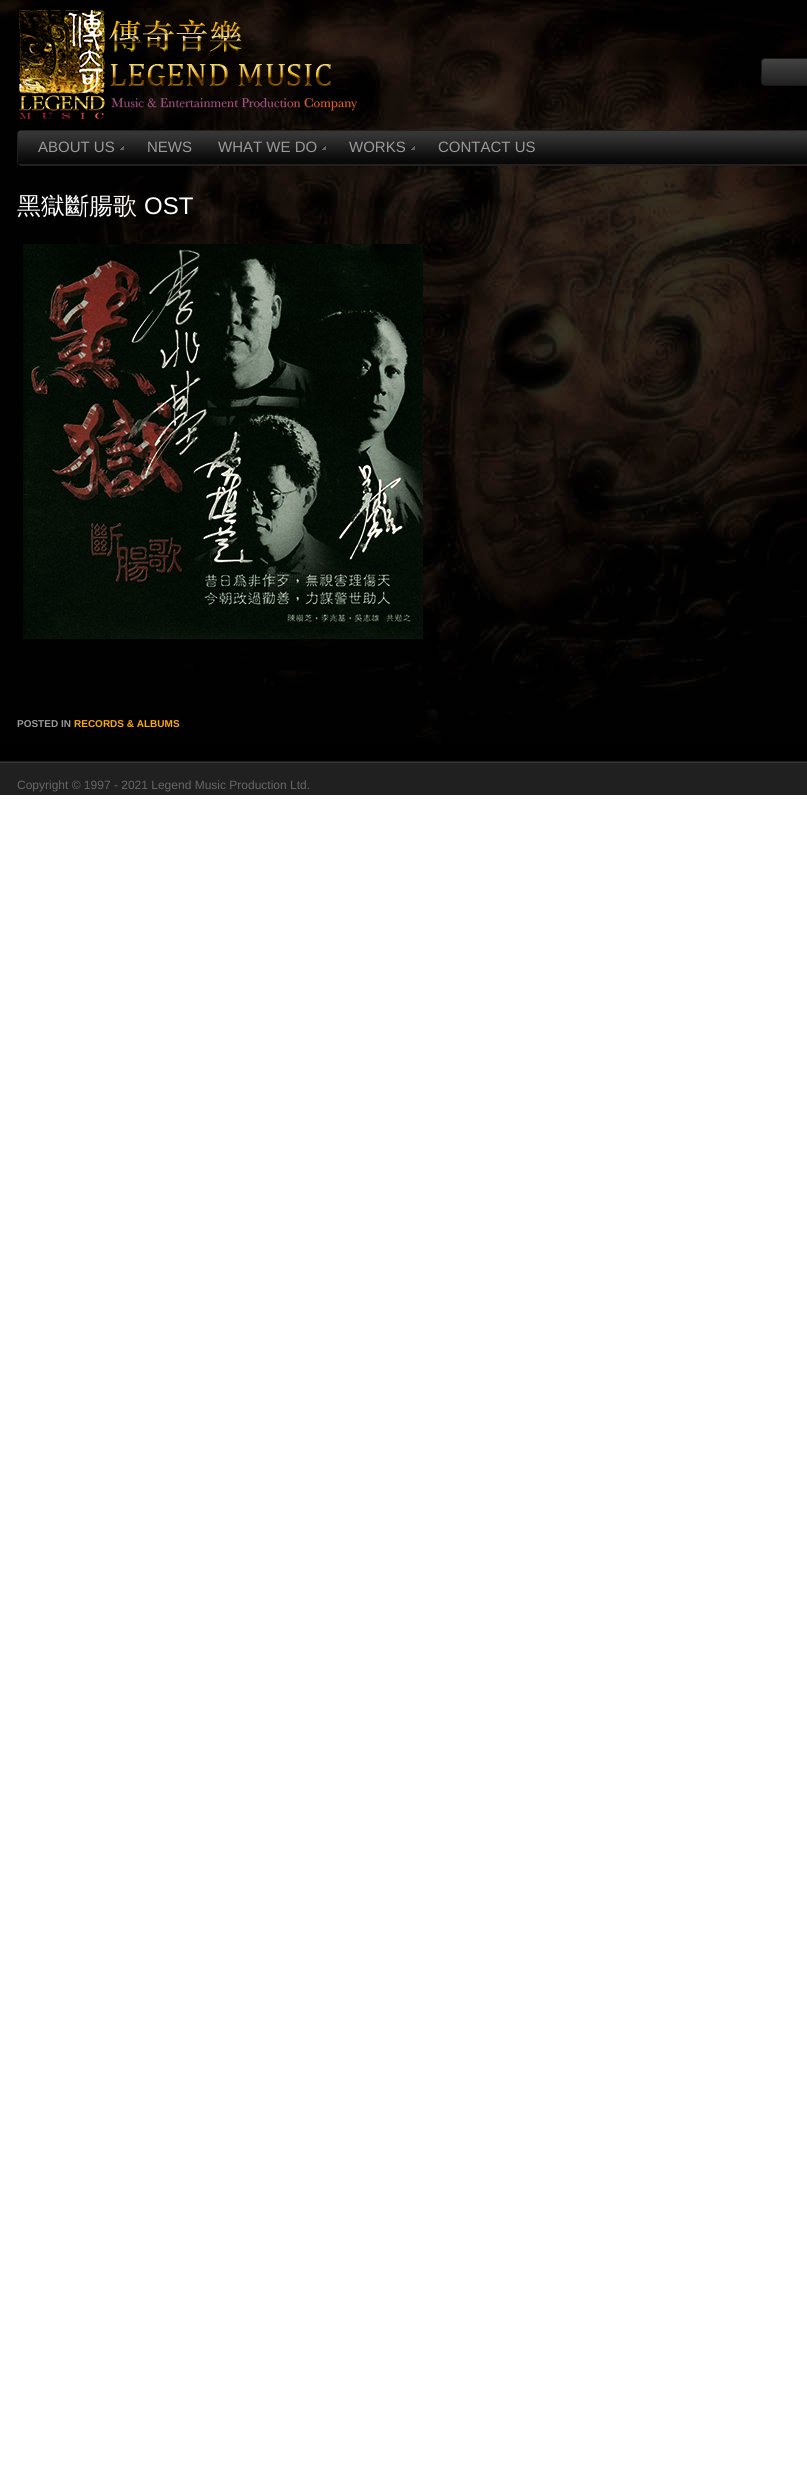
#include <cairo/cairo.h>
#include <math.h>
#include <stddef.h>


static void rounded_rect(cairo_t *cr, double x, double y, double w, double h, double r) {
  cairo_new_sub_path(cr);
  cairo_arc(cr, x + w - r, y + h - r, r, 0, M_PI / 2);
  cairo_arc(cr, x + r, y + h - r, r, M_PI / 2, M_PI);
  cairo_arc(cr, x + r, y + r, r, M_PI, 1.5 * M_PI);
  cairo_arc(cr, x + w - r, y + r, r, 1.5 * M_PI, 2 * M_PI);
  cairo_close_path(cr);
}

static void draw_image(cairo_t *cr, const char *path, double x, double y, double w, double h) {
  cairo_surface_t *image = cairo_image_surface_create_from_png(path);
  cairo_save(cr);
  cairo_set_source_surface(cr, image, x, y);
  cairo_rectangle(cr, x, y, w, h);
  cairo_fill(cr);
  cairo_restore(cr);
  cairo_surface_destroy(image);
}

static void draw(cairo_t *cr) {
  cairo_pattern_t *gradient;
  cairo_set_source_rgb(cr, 1, 1, 1);
  cairo_paint(cr);
  cairo_set_source_rgb(cr, 0, 0, 0);
  cairo_rectangle(cr, 0, 744, 807, 17);
  cairo_fill(cr);
  draw_image(cr, "images/1.png", 0, 0, 807, 744);
  draw_image(cr, "images/2.png", 19, 10, 338, 109);
  cairo_save(cr);
  rounded_rect(cr, 761, 58, 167, 28, 4);
  cairo_clip(cr);
  gradient = cairo_pattern_create_linear(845, 59, 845, 85);
  cairo_pattern_add_color_stop_rgba(gradient, 0, 67 / 255.0, 67 / 255.0, 67 / 255.0, 1);
  cairo_pattern_add_color_stop_rgba(gradient, 1, 32 / 255.0, 32 / 255.0, 32 / 255.0, 1);
  cairo_set_source(cr, gradient);
  cairo_pattern_destroy(gradient);
  cairo_rectangle(cr, 761, 59, 46, 26);
  cairo_fill(cr);
  cairo_restore(cr);
  cairo_new_path(cr);
  cairo_move_to(cr, 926.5, 84.5);
  cairo_curve_to(cr, 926, 85, 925, 85.5, 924, 85.5);
  cairo_line_to(cr, 765, 85.5);
  cairo_curve_to(cr, 764, 85.5, 763, 85, 762.5, 84.5);
  cairo_set_source_rgb(cr, 22 / 255.0, 22 / 255.0, 22 / 255.0);
  cairo_set_line_width(cr, 1);
  cairo_stroke(cr);
  cairo_new_path(cr);
  cairo_move_to(cr, 762.5, 84.5);
  cairo_curve_to(cr, 760.5, 82, 761.5, 74.5, 761.5, 72);
  cairo_line_to(cr, 761.5, 65.5);
  cairo_curve_to(cr, 761.5, 62.5, 761, 58.5, 765, 58.5);
  cairo_line_to(cr, 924, 58.5);
  cairo_curve_to(cr, 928, 58.5, 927.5, 62.5, 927.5, 65.5);
  cairo_line_to(cr, 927.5, 72);
  cairo_curve_to(cr, 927.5, 74.5, 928.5, 82, 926.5, 84.5);
  cairo_set_source_rgb(cr, 25 / 255.0, 25 / 255.0, 25 / 255.0);
  cairo_stroke(cr);
  cairo_set_source_rgb(cr, 32 / 255.0, 32 / 255.0, 32 / 255.0);
  cairo_set_fill_rule(cr, CAIRO_FILL_RULE_EVEN_ODD);
  cairo_new_path(cr);
  cairo_move_to(cr, 21, 130);
  cairo_line_to(cr, 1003, 130);
  cairo_curve_to(cr, 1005, 130, 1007, 132, 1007, 134);
  cairo_line_to(cr, 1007, 162);
  cairo_curve_to(cr, 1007, 164, 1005, 166, 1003, 166);
  cairo_line_to(cr, 21, 166);
  cairo_curve_to(cr, 19, 166, 17, 164, 17, 162);
  cairo_line_to(cr, 17, 134);
  cairo_curve_to(cr, 17, 132, 19, 130, 21, 130);
  cairo_close_path(cr);
  cairo_move_to(cr, 21, 131);
  cairo_line_to(cr, 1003, 131);
  cairo_curve_to(cr, 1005, 131, 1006, 132, 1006, 134);
  cairo_line_to(cr, 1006, 162);
  cairo_curve_to(cr, 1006, 164, 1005, 166, 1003, 166);
  cairo_line_to(cr, 21, 166);
  cairo_curve_to(cr, 19, 166, 18, 164, 18, 162);
  cairo_line_to(cr, 18, 134);
  cairo_curve_to(cr, 18, 132, 19, 131, 21, 131);
  cairo_close_path(cr);
  cairo_fill(cr);
  cairo_new_path(cr);
  cairo_move_to(cr, 20, 131);
  cairo_line_to(cr, 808, 131);
  cairo_curve_to(cr, 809, 131, 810, 132, 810, 133);
  cairo_line_to(cr, 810, 163);
  cairo_curve_to(cr, 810, 164.5, 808.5, 166, 807, 166);
  cairo_line_to(cr, 21, 166);
  cairo_curve_to(cr, 19.5, 166, 18, 164.5, 18, 163);
  cairo_line_to(cr, 18, 133);
  cairo_curve_to(cr, 18, 132, 19, 131, 20, 131);
  cairo_close_path(cr);
  cairo_fill(cr);
  draw_image(cr, "images/3.png", 18, 131, 789, 33);
  draw_image(cr, "images/4.png", 119, 145, 5, 5);
  draw_image(cr, "images/4.png", 321, 145, 5, 5);
  draw_image(cr, "images/4.png", 410, 145, 5, 5);
  draw_image(cr, "images/5.png", 23, 244, 400, 395);
  cairo_rectangle(cr, 0, 761, 807, 34);
  cairo_fill(cr);
  cairo_set_source_rgb(cr, 52 / 255.0, 52 / 255.0, 52 / 255.0);
  cairo_rectangle(cr, 0, 762, 807, 1);
  cairo_fill(cr);
  cairo_select_font_face(cr, "Liberation Sans", CAIRO_FONT_SLANT_NORMAL, CAIRO_FONT_WEIGHT_NORMAL);
  cairo_set_font_size(cr, 15);
  cairo_set_source_rgb(cr, 153 / 255.0, 153 / 255.0, 153 / 255.0);
  cairo_move_to(cr, 38, 152);
  cairo_show_text(cr, "ABOUT US");
  cairo_move_to(cr, 147, 152);
  cairo_show_text(cr, "NEWS");
  cairo_move_to(cr, 218, 152);
  cairo_show_text(cr, "WHAT WE DO");
  cairo_move_to(cr, 349, 152);
  cairo_show_text(cr, "WORKS");
  cairo_move_to(cr, 438, 152);
  cairo_show_text(cr, "CONTACT US");
  cairo_select_font_face(cr, "WenQuanYi Zen Hei Medium", CAIRO_FONT_SLANT_NORMAL, CAIRO_FONT_WEIGHT_NORMAL);
  cairo_set_font_size(cr, 24);
  cairo_set_source_rgb(cr, 1, 1, 1);
  cairo_move_to(cr, 17, 214);
  cairo_show_text(cr, "黑獄斷腸歌");
  cairo_select_font_face(cr, "Liberation Sans", CAIRO_FONT_SLANT_NORMAL, CAIRO_FONT_WEIGHT_NORMAL);
  cairo_move_to(cr, 144, 214);
  cairo_show_text(cr, "OST");
  cairo_select_font_face(cr, "Liberation Sans", CAIRO_FONT_SLANT_NORMAL, CAIRO_FONT_WEIGHT_BOLD);
  cairo_set_font_size(cr, 10);
  cairo_set_source_rgb(cr, 153 / 255.0, 153 / 255.0, 153 / 255.0);
  cairo_move_to(cr, 17, 727);
  cairo_show_text(cr, "POSTED IN");
  cairo_set_source_rgb(cr, 1, 169 / 255.0, 3 / 255.0);
  cairo_move_to(cr, 74, 727);
  cairo_show_text(cr, "RECORDS & ALBUMS");
  cairo_select_font_face(cr, "Liberation Sans", CAIRO_FONT_SLANT_NORMAL, CAIRO_FONT_WEIGHT_NORMAL);
  cairo_set_font_size(cr, 12);
  cairo_set_source_rgb(cr, 102 / 255.0, 102 / 255.0, 102 / 255.0);
  cairo_move_to(cr, 17, 789);
  cairo_show_text(cr, "Copyright © 1997 - 2021 Legend Music Production Ltd.");
}

int main(void) {
  cairo_surface_t *surface = cairo_image_surface_create(CAIRO_FORMAT_RGB24, 807, 2478);
  cairo_t *cr = cairo_create(surface);
  cairo_font_options_t *options = cairo_font_options_create();
  cairo_font_options_set_hint_metrics(options, CAIRO_HINT_METRICS_OFF);
  cairo_font_options_set_hint_style(options, CAIRO_HINT_STYLE_NONE);
  cairo_set_font_options(cr, options);
  cairo_set_miter_limit(cr, 4);
  draw(cr);
  cairo_surface_write_to_png(surface, "out.png");
  cairo_font_options_destroy(options);
  cairo_destroy(cr);
  cairo_surface_destroy(surface);
  return 0;
}
